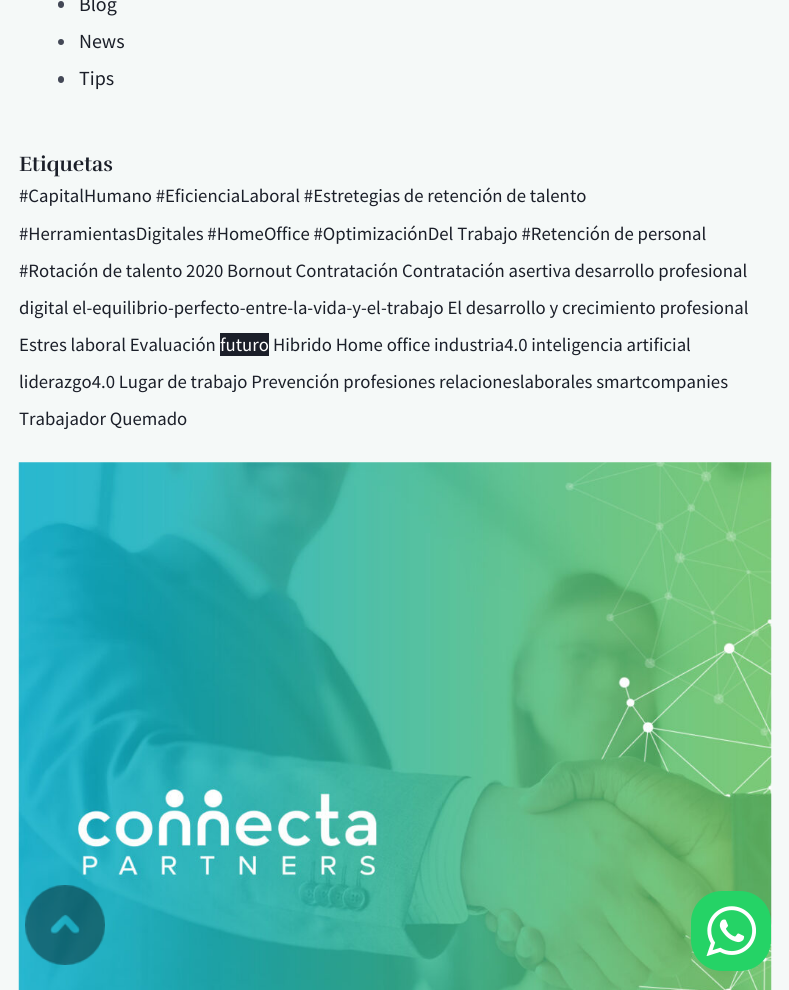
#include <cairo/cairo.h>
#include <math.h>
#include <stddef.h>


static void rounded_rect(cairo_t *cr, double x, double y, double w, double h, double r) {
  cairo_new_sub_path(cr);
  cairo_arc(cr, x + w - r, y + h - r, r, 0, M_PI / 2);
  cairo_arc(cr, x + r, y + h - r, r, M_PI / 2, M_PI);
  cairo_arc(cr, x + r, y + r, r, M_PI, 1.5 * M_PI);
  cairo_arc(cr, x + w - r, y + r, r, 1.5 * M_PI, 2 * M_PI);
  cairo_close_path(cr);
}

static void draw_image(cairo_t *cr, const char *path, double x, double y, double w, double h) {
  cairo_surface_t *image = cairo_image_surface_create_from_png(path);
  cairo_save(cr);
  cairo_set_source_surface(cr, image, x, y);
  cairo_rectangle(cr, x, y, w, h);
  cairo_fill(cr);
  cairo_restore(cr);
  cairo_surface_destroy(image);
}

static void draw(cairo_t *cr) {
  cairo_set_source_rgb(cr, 245 / 255.0, 249 / 255.0, 248 / 255.0);
  cairo_paint(cr);
  cairo_set_source_rgb(cr, 67 / 255.0, 72 / 255.0, 86 / 255.0);
  rounded_rect(cr, 58, 1, 6, 7, 3);
  cairo_fill(cr);
  cairo_arc(cr, 61, 42, 3, 0, 2 * M_PI);
  cairo_fill(cr);
  rounded_rect(cr, 58, 76, 6, 7, 3);
  cairo_fill(cr);
  cairo_set_source_rgb(cr, 27 / 255.0, 31 / 255.0, 41 / 255.0);
  cairo_rectangle(cr, 220, 333, 49, 23);
  cairo_fill(cr);
  draw_image(cr, "images/1.png", 18, 462, 754, 528);
  draw_image(cr, "images/2.png", 25, 885, 80, 80);
  cairo_set_source_rgb(cr, 37 / 255.0, 211 / 255.0, 102 / 255.0);
  rounded_rect(cr, 691, 891, 80, 80, 31);
  cairo_fill(cr);
  draw_image(cr, "images/3.png", 706, 906, 50, 50);
  cairo_select_font_face(cr, "Source Sans Pro", CAIRO_FONT_SLANT_NORMAL, CAIRO_FONT_WEIGHT_NORMAL);
  cairo_set_font_size(cr, 20);
  cairo_set_source_rgb(cr, 27 / 255.0, 31 / 255.0, 41 / 255.0);
  cairo_move_to(cr, 79, 11);
  cairo_show_text(cr, "Blog");
  cairo_move_to(cr, 79, 48);
  cairo_show_text(cr, "News");
  cairo_move_to(cr, 79, 85);
  cairo_show_text(cr, "Tips");
  cairo_select_font_face(cr, "Rufina", CAIRO_FONT_SLANT_NORMAL, CAIRO_FONT_WEIGHT_BOLD);
  cairo_set_font_size(cr, 21.25);
  cairo_move_to(cr, 19, 171);
  cairo_show_text(cr, "Etiquetas");
  cairo_select_font_face(cr, "Source Sans Pro", CAIRO_FONT_SLANT_NORMAL, CAIRO_FONT_WEIGHT_NORMAL);
  cairo_set_font_size(cr, 18.75);
  cairo_move_to(cr, 19, 202);
  cairo_show_text(cr, "#CapitalHumano #EficienciaLaboral #Estretegias de retención de talento");
  cairo_move_to(cr, 19, 240);
  cairo_show_text(cr, "#HerramientasDigitales #HomeOffice #OptimizaciónDel Trabajo #Retención de personal");
  cairo_move_to(cr, 19, 277);
  cairo_show_text(cr, "#Rotación de talento 2020 Bornout Contratación Contratación asertiva desarrollo profesional");
  cairo_move_to(cr, 19, 314);
  cairo_show_text(cr, "digital el-equilibrio-perfecto-entre-la-vida-y-el-trabajo El desarrollo y crecimiento profesional");
  cairo_move_to(cr, 19, 351);
  cairo_show_text(cr, "Estres laboral Evaluación");
  cairo_set_source_rgb(cr, 1, 1, 1);
  cairo_move_to(cr, 220, 351);
  cairo_show_text(cr, "futuro");
  cairo_set_source_rgb(cr, 27 / 255.0, 31 / 255.0, 41 / 255.0);
  cairo_move_to(cr, 273, 351);
  cairo_show_text(cr, "Hibrido Home office industria4.0 inteligencia artificial");
  cairo_move_to(cr, 19, 388);
  cairo_show_text(cr, "liderazgo4.0 Lugar de trabajo Prevención profesiones relacioneslaborales smartcompanies");
  cairo_move_to(cr, 19, 425);
  cairo_show_text(cr, "Trabajador Quemado");
}

int main(void) {
  cairo_surface_t *surface = cairo_image_surface_create(CAIRO_FORMAT_RGB24, 789, 990);
  cairo_t *cr = cairo_create(surface);
  cairo_font_options_t *options = cairo_font_options_create();
  cairo_font_options_set_hint_metrics(options, CAIRO_HINT_METRICS_OFF);
  cairo_font_options_set_hint_style(options, CAIRO_HINT_STYLE_NONE);
  cairo_set_font_options(cr, options);
  cairo_set_miter_limit(cr, 4);
  draw(cr);
  cairo_surface_write_to_png(surface, "out.png");
  cairo_font_options_destroy(options);
  cairo_destroy(cr);
  cairo_surface_destroy(surface);
  return 0;
}
